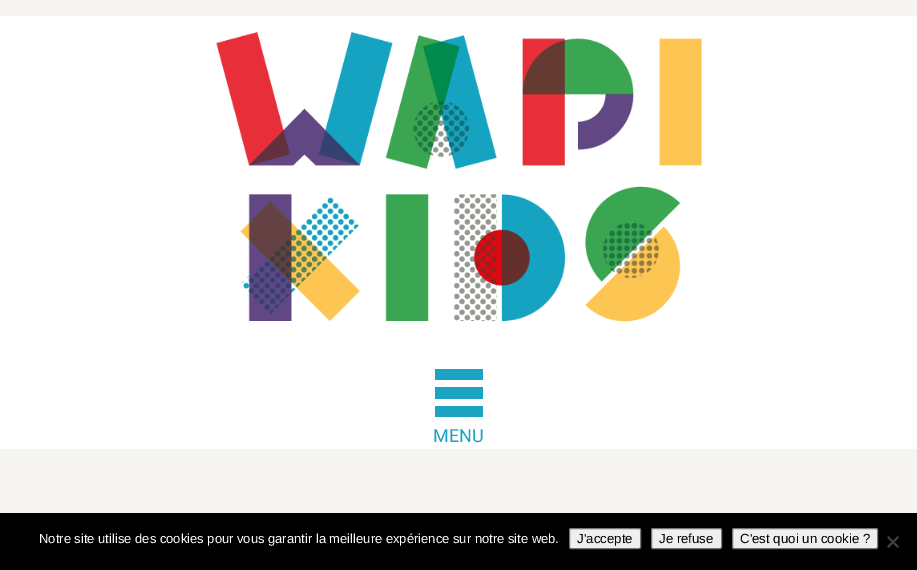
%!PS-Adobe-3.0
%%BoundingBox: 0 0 917 570
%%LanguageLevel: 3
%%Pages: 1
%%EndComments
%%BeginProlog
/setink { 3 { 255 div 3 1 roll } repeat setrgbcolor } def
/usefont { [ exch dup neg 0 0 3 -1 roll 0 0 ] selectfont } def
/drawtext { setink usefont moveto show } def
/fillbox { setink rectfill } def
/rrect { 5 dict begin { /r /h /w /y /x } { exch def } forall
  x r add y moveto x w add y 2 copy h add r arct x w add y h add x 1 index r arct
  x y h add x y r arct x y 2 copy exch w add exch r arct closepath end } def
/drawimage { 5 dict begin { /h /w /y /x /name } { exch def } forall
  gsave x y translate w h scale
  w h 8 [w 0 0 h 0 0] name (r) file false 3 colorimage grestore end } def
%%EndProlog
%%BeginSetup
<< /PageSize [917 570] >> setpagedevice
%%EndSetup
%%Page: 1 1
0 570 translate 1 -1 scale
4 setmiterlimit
0 0 917 570 246 245 241 fillbox
0 16 917 433 255 255 255 fillbox
(assets/img1.rgb) 216 32 486 290 drawimage
435 406 48 11 28 163 194 fillbox
435 387 48 12 28 163 194 fillbox
435 369 48 11 28 163 194 fillbox
(MENU) 433 442 /Roboto-Regular 18 28 163 194 drawtext
0 513 917 57 0 0 0 fillbox
(Notre site utilise des cookies pour vous garantir la meilleure expérience sur notre site web.) 39 543 /LiberationSans-Regular 13 255 255 255 drawtext
239 239 239 setink
569.5 528.5 71 20 1.5 rrect gsave fill grestore
118 118 118 setink
stroke
(J'accepte) 577 543 /LiberationSans-Regular 13.25 0 0 0 drawtext
239 239 239 setink
651.5 528.5 70 20 1.5 rrect gsave fill grestore
118 118 118 setink
stroke
(Je refuse) 659 543 /LiberationSans-Regular 13.25 0 0 0 drawtext
239 239 239 setink
732.5 528.5 145 20 1.5 rrect gsave fill grestore
118 118 118 setink
stroke
(C'est quoi un cookie ?) 740 543 /LiberationSans-Regular 13.25 0 0 0 drawtext
64 64 64 setink
897.5 536 moveto 899 537.5 lineto 888.5 548 lineto 887 546.5 lineto closepath fill
887 537.5 moveto 888.5 536 lineto 899 546.5 lineto 897.5 548 lineto closepath fill
showpage
%%EOF
